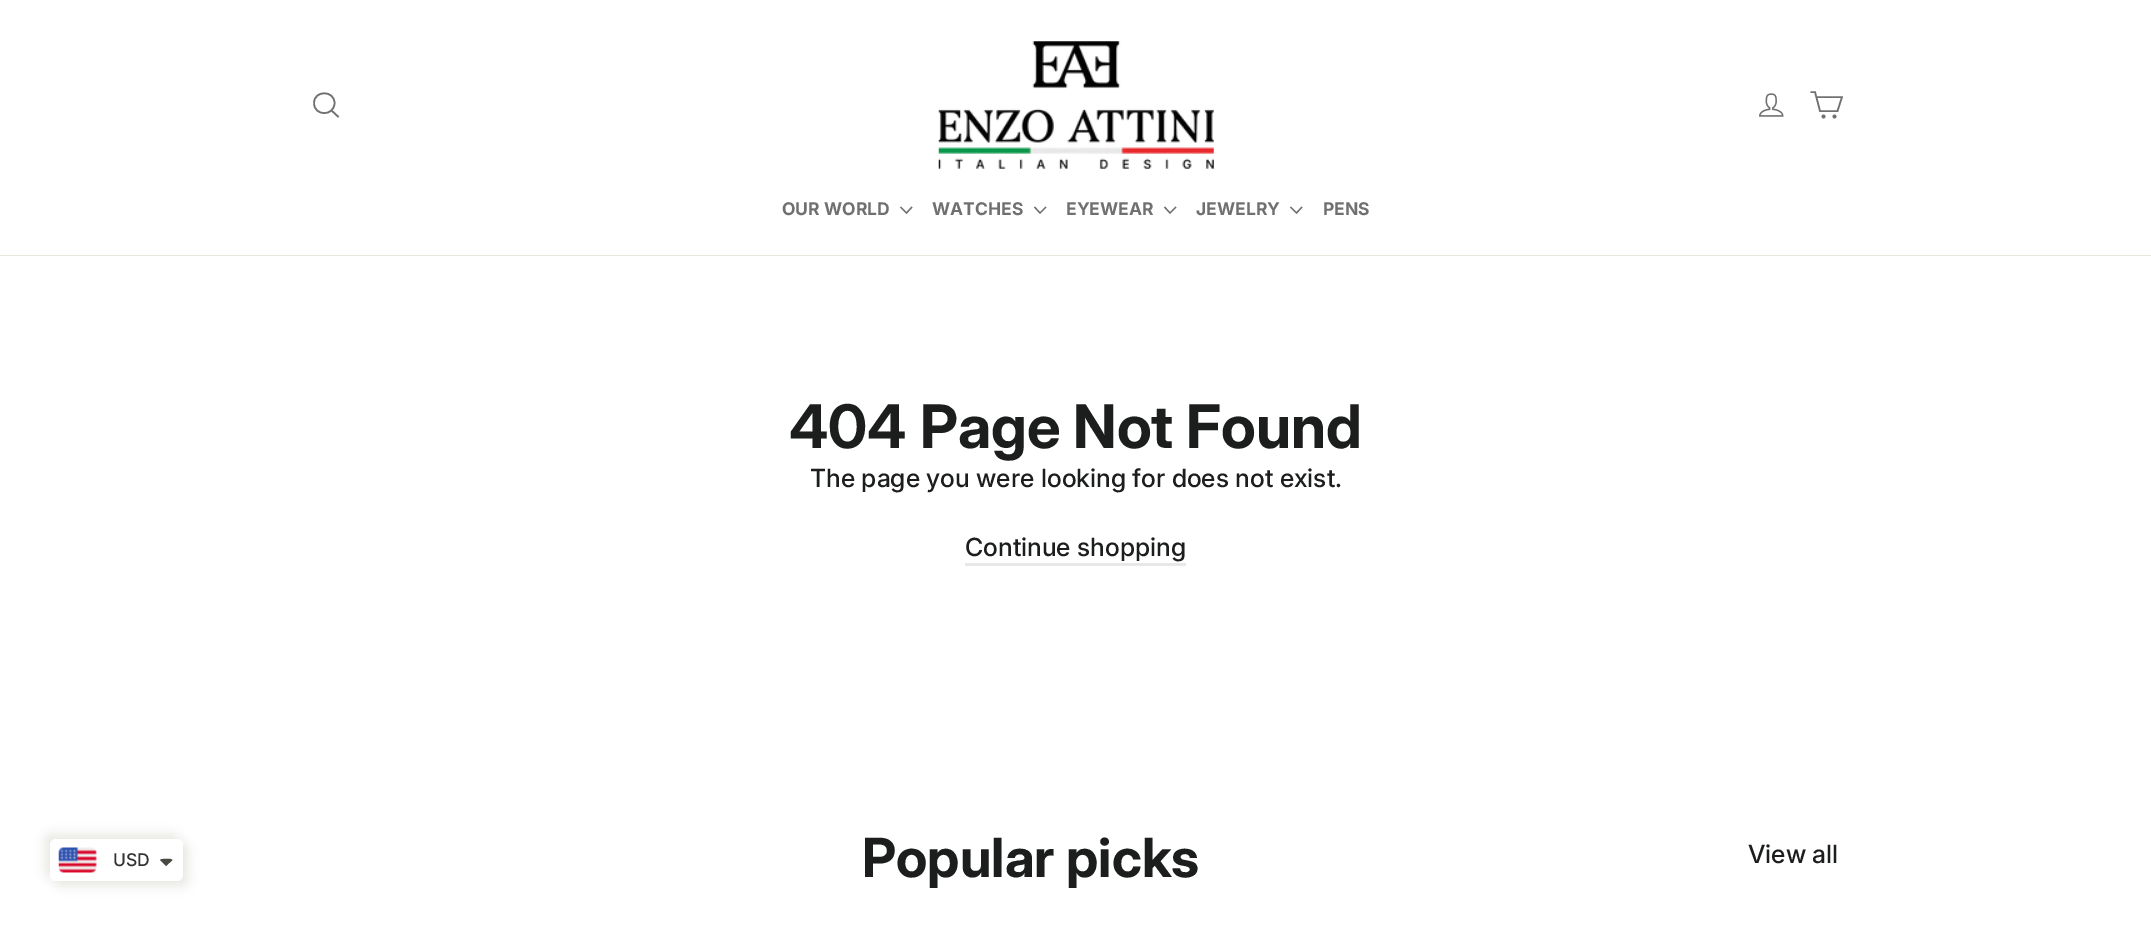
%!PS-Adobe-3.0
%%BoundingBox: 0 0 2151 935
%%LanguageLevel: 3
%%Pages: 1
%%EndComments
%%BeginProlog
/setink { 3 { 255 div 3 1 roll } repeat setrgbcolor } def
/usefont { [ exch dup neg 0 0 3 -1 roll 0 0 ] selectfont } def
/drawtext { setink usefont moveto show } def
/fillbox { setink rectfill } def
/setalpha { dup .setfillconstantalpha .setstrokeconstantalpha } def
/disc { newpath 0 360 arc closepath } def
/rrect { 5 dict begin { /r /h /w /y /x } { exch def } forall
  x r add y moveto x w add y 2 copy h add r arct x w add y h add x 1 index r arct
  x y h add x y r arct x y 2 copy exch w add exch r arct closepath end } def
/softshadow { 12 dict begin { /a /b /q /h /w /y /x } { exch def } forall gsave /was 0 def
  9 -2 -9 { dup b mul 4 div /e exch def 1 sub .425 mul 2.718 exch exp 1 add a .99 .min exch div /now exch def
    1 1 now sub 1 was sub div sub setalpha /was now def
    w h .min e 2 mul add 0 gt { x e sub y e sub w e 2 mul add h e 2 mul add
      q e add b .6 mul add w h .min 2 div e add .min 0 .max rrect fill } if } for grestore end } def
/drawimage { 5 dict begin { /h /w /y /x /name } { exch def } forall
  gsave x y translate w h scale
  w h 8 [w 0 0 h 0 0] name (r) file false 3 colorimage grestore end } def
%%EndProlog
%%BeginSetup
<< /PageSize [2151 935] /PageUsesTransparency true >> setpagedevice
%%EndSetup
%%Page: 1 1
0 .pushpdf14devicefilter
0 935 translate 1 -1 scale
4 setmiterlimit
0 0 2151 935 255 255 255 fillbox
232 232 226 setink
45 834 133 42 6 5.5 1 softshadow
55 844 133 42 6 5.5 1 softshadow
255 255 255 setink
50 839 133 42 6 rrect fill
(assets/img1.rgb) 58 847 39 26 drawimage
(USD) 113 866 /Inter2-Medium 17.5 51 51 51 drawtext
71 73 66 setink
162.5 859 moveto 165 859 170.5 858 172.5 860 curveto 166 866 lineto 160 860 lineto 160.5 859.5 161.5 859 162.5 859 curveto closepath fill
0 255 2151 1 232 232 225 fillbox
112 112 112 setink
1.6 setlinewidth
334.5 103 moveto 334.5 116.5 314 116.5 314 103 curveto 314 90 334.5 90 334.5 103 curveto closepath 338.5 117 moveto 331.5 110.5 lineto stroke
(assets/img2.rgb) 938 41 276 128 drawimage
(assets/img3.rgb) 1759 93 25 24 drawimage
1816.5 97 moveto 1842 97 lineto 1837.5 111 lineto 1820 111 lineto 1815 92 lineto 1810.5 92 lineto stroke
1823.5 116.5 1.1 disc stroke
1834.5 116.5 1.1 disc stroke
(OUR WORLD) 782 215 /Inter2-Bold 17.5 112 112 112 drawtext
1.3 setlinewidth
900.5 207 moveto 906.5 213 lineto 912 207 lineto stroke
(WATCHES) 932 215 /Inter2-Bold 17.5 112 112 112 drawtext
1034.5 207 moveto 1040 213 lineto 1046 207 lineto stroke
(EYEWEAR) 1066 215 /Inter2-Bold 17.5 112 112 112 drawtext
1164.5 207 moveto 1170 213 lineto 1176 207 lineto stroke
(JEWELRY) 1196 215 /Inter2-Bold 17.5 112 112 112 drawtext
1290.5 207 moveto 1296.5 213 lineto 1302 207 lineto stroke
(PENS) 1323 215 /Inter2-Bold 17.5 112 112 112 drawtext
(404 Page Not Found) 789 448 /Inter-Bold 60 28 29 29 drawtext
(The page you were looking for does not exist.) 810 487 /Inter-Medium 25 28 29 29 drawtext
(Continue shopping) 965 556 /Inter-Medium 25 28 29 29 drawtext
965 563 221 3 232 232 232 fillbox
(Popular picks) 862 877 /Inter-Bold 54 28 29 29 drawtext
(View all) 1748 863 /Inter-Medium 25 28 29 29 drawtext
.poppdf14devicefilter showpage
%%EOF
